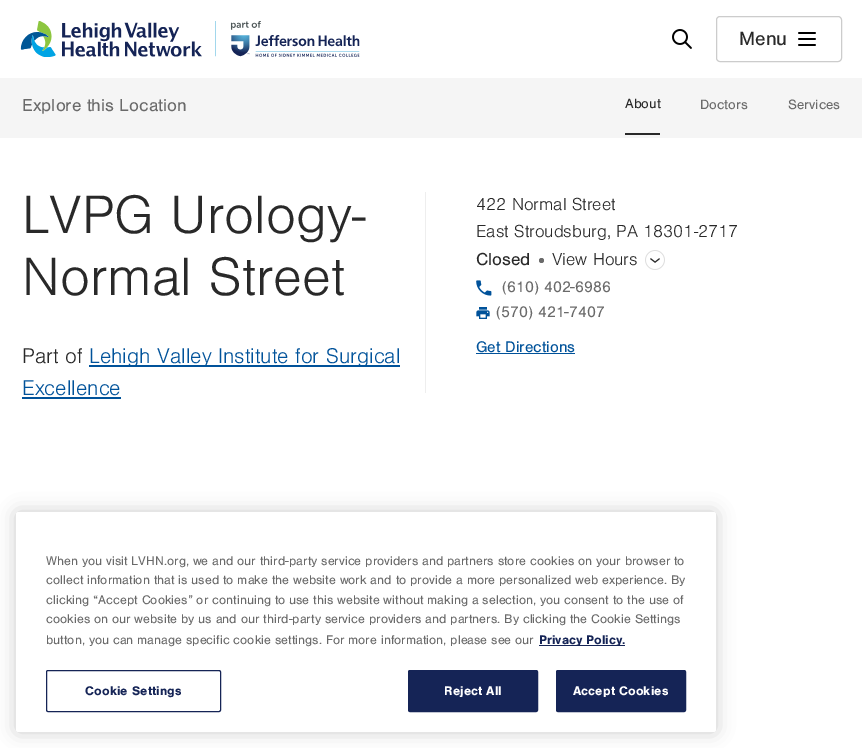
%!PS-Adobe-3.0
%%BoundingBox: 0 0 862 748
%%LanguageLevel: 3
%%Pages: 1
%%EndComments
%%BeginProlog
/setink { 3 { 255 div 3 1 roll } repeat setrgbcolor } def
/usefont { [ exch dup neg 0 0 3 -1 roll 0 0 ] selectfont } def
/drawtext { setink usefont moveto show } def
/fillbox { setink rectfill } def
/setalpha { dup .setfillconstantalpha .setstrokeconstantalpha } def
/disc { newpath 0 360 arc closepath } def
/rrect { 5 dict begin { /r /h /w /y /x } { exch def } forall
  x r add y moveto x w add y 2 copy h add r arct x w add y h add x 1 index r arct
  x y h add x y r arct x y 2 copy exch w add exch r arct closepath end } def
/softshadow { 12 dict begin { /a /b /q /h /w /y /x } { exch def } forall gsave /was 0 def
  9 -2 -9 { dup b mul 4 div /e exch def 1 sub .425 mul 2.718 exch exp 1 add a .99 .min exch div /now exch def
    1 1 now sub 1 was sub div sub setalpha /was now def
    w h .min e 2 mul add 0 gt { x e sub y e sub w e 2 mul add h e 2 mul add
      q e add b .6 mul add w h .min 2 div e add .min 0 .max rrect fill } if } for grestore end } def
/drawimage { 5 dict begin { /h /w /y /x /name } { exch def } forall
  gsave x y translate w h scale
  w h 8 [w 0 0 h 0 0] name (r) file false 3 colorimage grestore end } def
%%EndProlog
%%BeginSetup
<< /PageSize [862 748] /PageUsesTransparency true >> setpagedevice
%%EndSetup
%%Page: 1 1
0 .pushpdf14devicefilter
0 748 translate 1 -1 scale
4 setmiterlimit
0 0 862 748 255 255 255 fillbox
(assets/img1.rgb) 20 21 340 36 drawimage
(assets/img2.rgb) 672 29 20 20 drawimage
204 204 204 setink
716.5 16.5 125 45 3.5 rrect stroke
(Menu) 739 45 /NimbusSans-Regular 20 41 41 41 drawtext
(assets/img3.rgb) 798 32 18 14 drawimage
0 78 862 60 245 245 245 fillbox
(Explore this Location) 22 111 /NimbusSans-Regular 18 106 106 106 drawtext
625 133 35 2 41 41 41 fillbox
(About) 625 108 /NimbusSans-Regular 14 41 41 41 drawtext
(Doctors) 700 109 /NimbusSans-Regular 14 106 106 106 drawtext
(Services) 788 109 /NimbusSans-Regular 14 106 106 106 drawtext
(LVPG Urology-) 22 233 /NimbusSans-Light 56 41 41 41 drawtext
(Normal Street) 22 295 /NimbusSans-Light 56 41 41 41 drawtext
(Part of) 22 363 /NimbusSans-Light 22 41 41 41 drawtext
89 365 311 2 0 82 154 fillbox
(Lehigh Valley Institute for Surgical) 89 363 /NimbusSans-Light 22 0 82 154 drawtext
(Excellence) 22 395 /NimbusSans-Light 22 0 82 154 drawtext
22 397 99 2 0 82 154 fillbox
425 192 1 201 238 238 238 fillbox
(422 Normal Street) 476 210 /NimbusSans-Light 18 41 41 41 drawtext
(East Stroudsburg, PA 18301-2717) 476 237 /NimbusSans-Light 18 41 41 41 drawtext
(Closed) 476 265 /NimbusSans-Regular 18 41 41 41 drawtext
106 106 106 setink
541.5 260.5 2.5 disc fill
(View Hours) 552 265 /NimbusSans-Light 18 41 41 41 drawtext
(assets/img4.rgb) 645 250 20 20 drawimage
(assets/img5.rgb) 476 280 16 16 drawimage
(\(610\) 402-6986) 502 292 /NimbusSans-Regular 16 106 106 106 drawtext
(assets/img6.rgb) 476 307 14 12 drawimage
(\(570\) 421-7407) 496 317 /NimbusSans-Regular 16 106 106 106 drawtext
(Get Directions) 476 352 /NimbusSans-Regular 16 0 82 154 drawtext
476 353 99 1 0 82 154 fillbox
0 0 0 setink
16 512 700 220 2.5 9 0.2 softshadow
255 255 255 setink
16 512 700 220 2.5 rrect fill
(When you visit LVHN.org, we and our third-party service providers and partners store cookies on your browser to) 46 565 /NimbusSans-Regular 13 106 106 106 drawtext
(collect information that is used to make the website work and to provide a more personalized web experience. By) 46 584 /NimbusSans-Regular 13 106 106 106 drawtext
(clicking “Accept Cookies” or continuing to use this website without making a selection, you consent to the use of) 46 604 /NimbusSans-Regular 13 106 106 106 drawtext
(cookies on our website by us and our third-party service providers and partners. By clicking the Cookie Settings) 46 623 /NimbusSans-Regular 13 106 106 106 drawtext
(button, you can manage specific cookie settings. For more information, please see our) 46 644 /NimbusSans-Regular 13 106 106 106 drawtext
539 645 86 1 21 36 86 fillbox
(Privacy Policy.) 539 644 /NimbusSans-Bold 13 21 36 86 drawtext
46.5 670.5 174 41 1.5 rrect stroke
85 695 moveto 0.1 0 (Cookie Settings) ashow
408.5 670.5 129 41 1.5 rrect gsave fill grestore
stroke
255 255 255 setink
444 695 moveto 0.1 0 (Reject All) ashow
21 36 86 setink
556.5 670.5 129 41 1.5 rrect gsave fill grestore
stroke
255 255 255 setink
573 695 moveto 0.1 0 (Accept Cookies) ashow
.poppdf14devicefilter showpage
%%EOF
